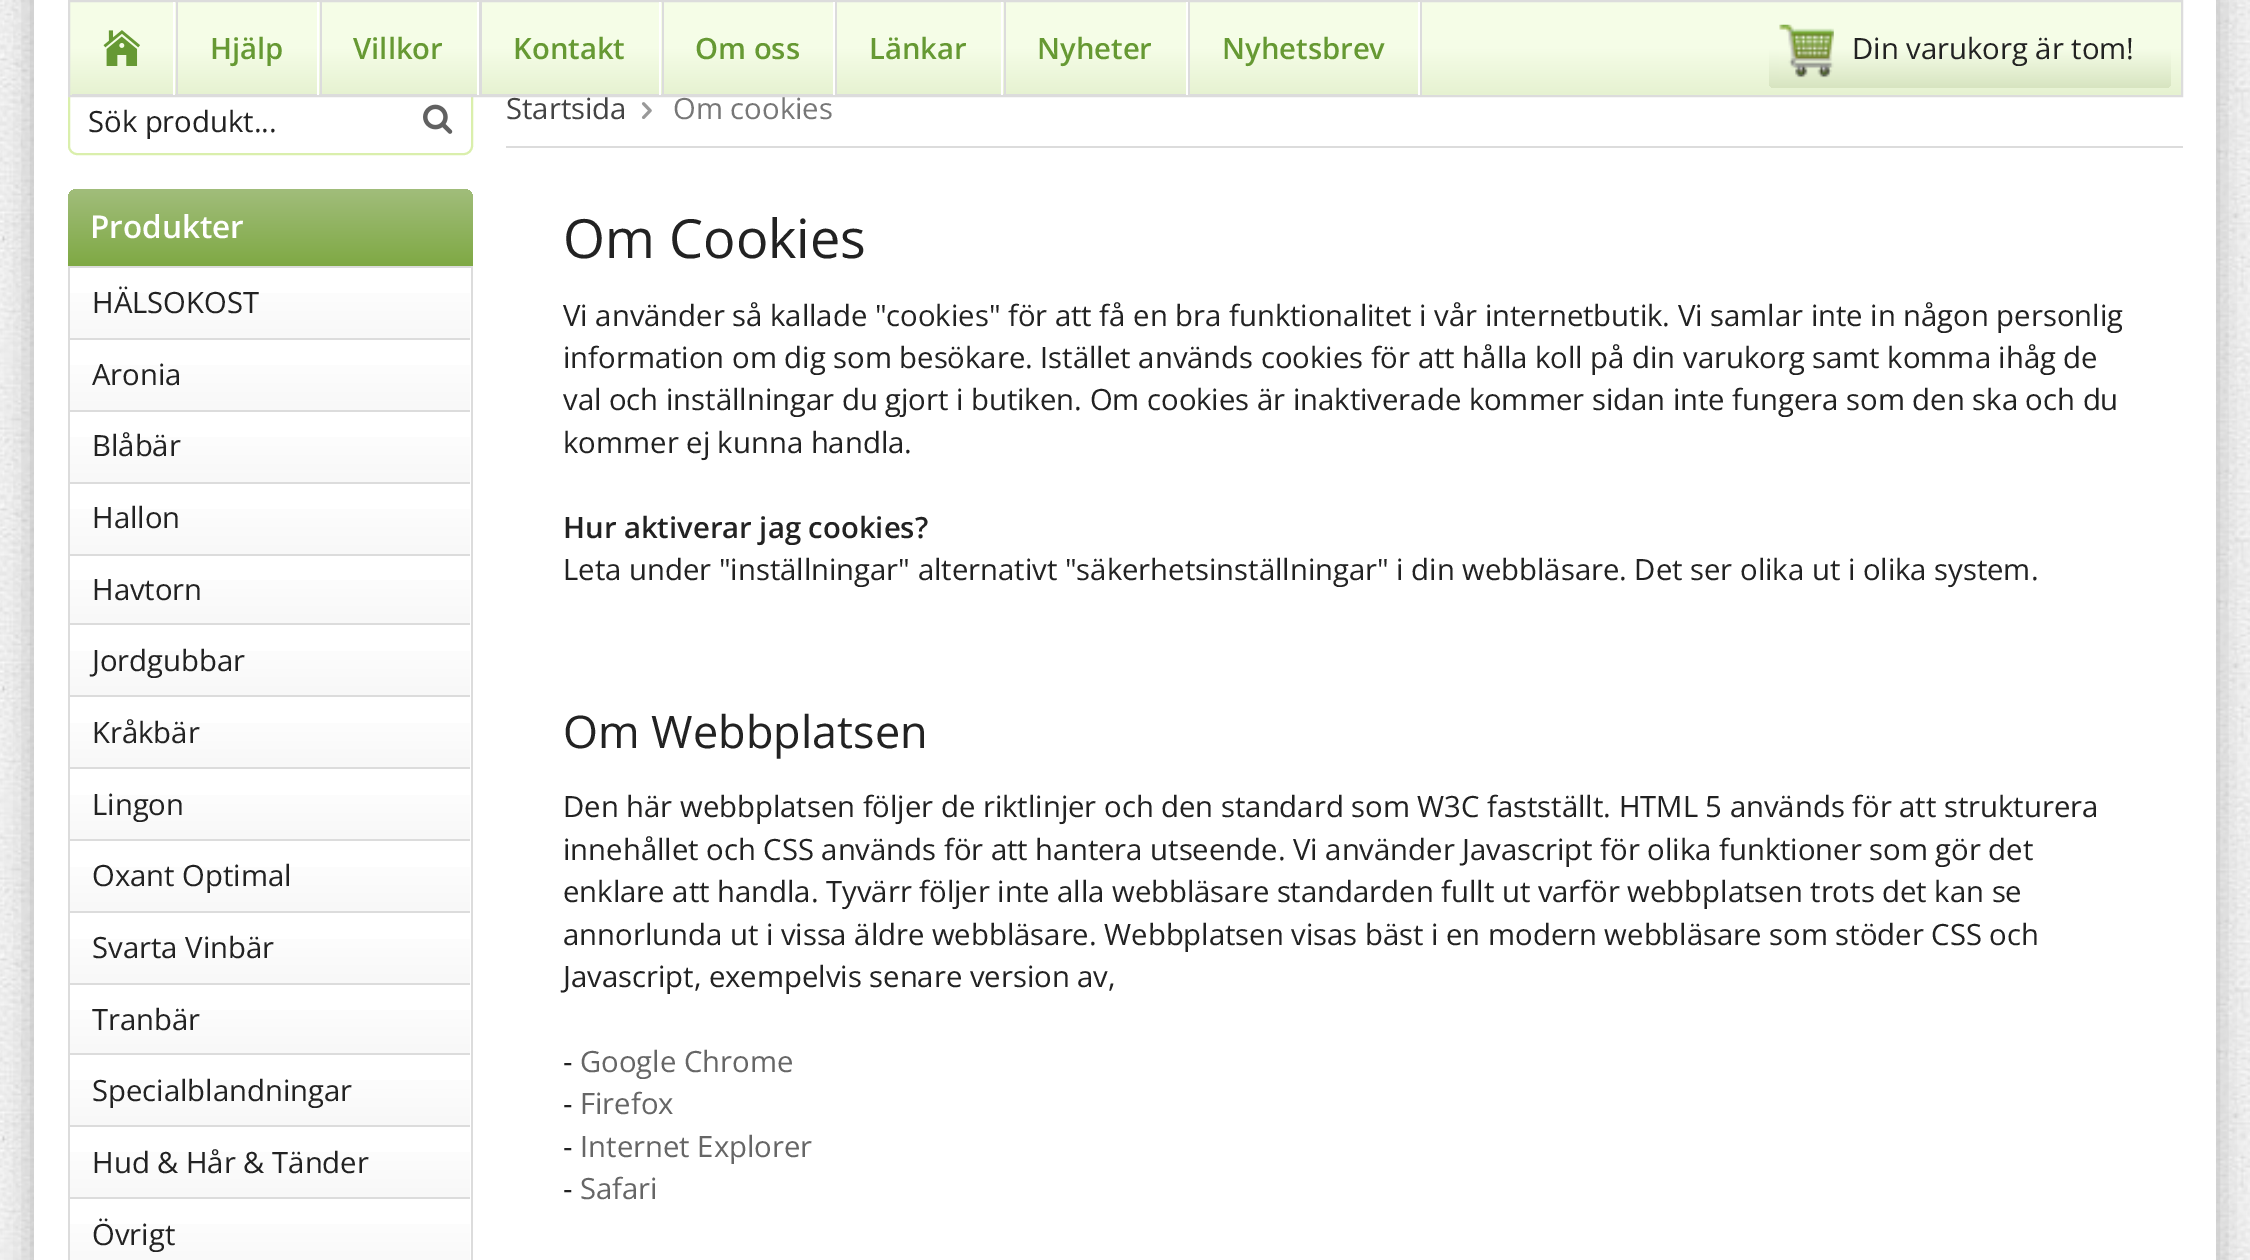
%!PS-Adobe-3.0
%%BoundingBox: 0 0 2250 1260
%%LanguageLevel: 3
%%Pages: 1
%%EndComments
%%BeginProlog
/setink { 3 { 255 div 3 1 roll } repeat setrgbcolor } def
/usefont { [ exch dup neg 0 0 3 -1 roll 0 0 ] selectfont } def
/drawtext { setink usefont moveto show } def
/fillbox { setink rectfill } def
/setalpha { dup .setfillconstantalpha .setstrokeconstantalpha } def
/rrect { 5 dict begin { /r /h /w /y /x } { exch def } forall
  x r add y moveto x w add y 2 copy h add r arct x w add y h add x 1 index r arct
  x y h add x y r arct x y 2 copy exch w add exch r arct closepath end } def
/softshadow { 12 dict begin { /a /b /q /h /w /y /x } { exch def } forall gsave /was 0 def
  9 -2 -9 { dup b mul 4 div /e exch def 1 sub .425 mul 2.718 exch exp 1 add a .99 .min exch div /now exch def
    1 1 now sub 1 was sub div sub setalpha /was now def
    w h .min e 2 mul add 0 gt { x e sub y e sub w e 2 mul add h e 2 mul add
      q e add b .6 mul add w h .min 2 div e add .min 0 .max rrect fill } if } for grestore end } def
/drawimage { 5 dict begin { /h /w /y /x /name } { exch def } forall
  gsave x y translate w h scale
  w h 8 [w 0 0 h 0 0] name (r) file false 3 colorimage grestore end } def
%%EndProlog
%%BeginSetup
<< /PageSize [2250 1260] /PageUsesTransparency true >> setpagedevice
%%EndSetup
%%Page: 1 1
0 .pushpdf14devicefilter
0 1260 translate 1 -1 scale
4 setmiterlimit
0 0 2250 1260 255 255 255 fillbox
(assets/img1.rgb) 0 0 2250 1260 drawimage
181 181 181 setink
34 -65 2182 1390 14 17 1 softshadow
34 0 2182 1260 255 255 255 fillbox
218 239 172 setink
2 setlinewidth
69 89 403 65 8 rrect stroke
gsave 70 2 moveto 2181 2 lineto 2181 95 lineto 70 95 lineto closepath clip newpath
<< /ShadingType 2 /ColorSpace /DeviceRGB /Coords [1125 2.2 1125 95] /Extend [true true] /Function << /FunctionType 3 /Domain [0 1] /Functions [<< /FunctionType 2 /Domain [0 1] /C0 [0.961 0.992 0.906] /C1 [0.961 0.992 0.906] /N 1 >> << /FunctionType 2 /Domain [0 1] /C0 [0.961 0.992 0.906] /C1 [0.902 0.949 0.82] /N 1 >>] /Bounds [0.5] /Encode [0 1 0 1] >> >> shfill grestore
(Startsida) 506 119 /OpenSans-Regular 29.25 68 68 68 drawtext
(Om cookies) 673 119 /OpenSans-Regular 29.25 119 119 119 drawtext
220 220 220 setink
69 1 2113 95 rectstroke
72 2 moveto 176 2 lineto 176 94 lineto 72 94 lineto 72 95 lineto 178 95 lineto 178 2 lineto closepath fill
173 2 2 93 255 255 255 fillbox
(assets/img2.rgb) 103 30 37 36 drawimage
220 220 220 setink
178 2 moveto 320 2 lineto 320 94 lineto 178 94 lineto 178 95 lineto 322 95 lineto 322 2 lineto closepath fill
317 2 2 93 255 255 255 fillbox
(Hjälp) 210 59 /OpenSans-SemiBold 29.25 102 153 51 drawtext
220 220 220 setink
322 2 moveto 479 2 lineto 479 94 lineto 322 94 lineto 322 95 lineto 482 95 lineto 482 2 lineto closepath fill
477 2 2 93 255 255 255 fillbox
(Villkor) 353 59 /OpenSans-SemiBold 29.25 102 153 51 drawtext
220 220 220 setink
482 2 moveto 662 2 lineto 662 94 lineto 482 94 lineto 482 95 lineto 664 95 lineto 664 2 lineto closepath fill
659 2 2 93 255 255 255 fillbox
(Kontakt) 513 59 /OpenSans-SemiBold 29.25 102 153 51 drawtext
220 220 220 setink
664 2 moveto 835 2 lineto 835 94 lineto 664 94 lineto 664 95 lineto 837 95 lineto 837 2 lineto closepath fill
833 2 2 93 255 255 255 fillbox
(Om oss) 695 59 /OpenSans-SemiBold 29.25 102 153 51 drawtext
220 220 220 setink
837 2 moveto 1004 2 lineto 1004 94 lineto 837 94 lineto 837 95 lineto 1006 95 lineto 1006 2 lineto closepath fill
1001 2 2 93 255 255 255 fillbox
(Länkar) 869 59 /OpenSans-SemiBold 29.25 102 153 51 drawtext
220 220 220 setink
1006 2 moveto 1188 2 lineto 1188 94 lineto 1006 94 lineto 1006 95 lineto 1190 95 lineto 1190 2 lineto closepath fill
1186 2 2 93 255 255 255 fillbox
(Nyheter) 1037 59 /OpenSans-SemiBold 29.25 102 153 51 drawtext
220 220 220 setink
1190 2 moveto 1420 2 lineto 1420 94 lineto 1190 94 lineto 1190 95 lineto 1422 95 lineto 1422 2 lineto closepath fill
1418 2 2 93 255 255 255 fillbox
(Nyhetsbrev) 1222 59 /OpenSans-SemiBold 29.25 102 153 51 drawtext
gsave 1769 9 402 79 5 rrect clip newpath
<< /ShadingType 2 /ColorSpace /DeviceRGB /Coords [1970 9 1970 88] /Extend [true true] /Function << /FunctionType 3 /Domain [0 1] /Functions [<< /FunctionType 2 /Domain [0 1] /C0 [0.961 0.992 0.906] /C1 [0.961 0.992 0.906] /N 1 >> << /FunctionType 2 /Domain [0 1] /C0 [0.961 0.992 0.906] /C1 [0.843 0.894 0.753] /N 1 >>] /Bounds [0.5] /Encode [0 1 0 1] >> >> shfill grestore
(assets/img3.rgb) 1779 24 55 54 drawimage
(Din varukorg är tom!) 1852 59 /OpenSans-Regular 29.25 34 34 34 drawtext
(Sök produkt...) 88 132 /OpenSans-Regular 29.25 34 34 34 drawtext
(assets/img4.rgb) 423 104 30 30 drawimage
gsave 77 189 moveto 464 189 lineto 469 189 473 193 473 198 curveto 473 266 lineto 68 266 lineto 68 198 lineto 68 193 72 189 77 189 curveto closepath clip newpath
<< /ShadingType 2 /ColorSpace /DeviceRGB /Coords [270 189 270 266] /Extend [true true] /Function << /FunctionType 2 /Domain [0 1] /C0 [0.631 0.741 0.482] /C1 [0.498 0.663 0.267] /N 1 >> >> shfill grestore
(Produkter) 90 238 /OpenSans-SemiBold 31.5 255 255 255 drawtext
220 220 220 setink
70 268 moveto 471 268 lineto 471 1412 lineto 472 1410 473 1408 473 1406 curveto 473 266 lineto 68 266 lineto 68 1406 lineto 68 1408 69 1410 70 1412 curveto closepath 464 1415 moveto 466 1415 468 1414 470 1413 curveto 71 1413 lineto 73 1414 75 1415 77 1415 curveto closepath eofill
gsave 70 293 moveto 470 293 lineto 470 338 lineto 70 338 lineto closepath clip newpath
<< /ShadingType 2 /ColorSpace /DeviceRGB /Coords [270 268 270 338] /Extend [true true] /Function << /FunctionType 2 /Domain [0 1] /C0 [1 1 1] /C1 [0.973 0.973 0.973] /N 1 >> >> shfill grestore
70 338 400 2 220 220 220 fillbox
(HÄLSOKOST) 92 313 /OpenSans-Regular 29.25 34 34 34 drawtext
gsave 70 365 moveto 470 365 lineto 470 410 lineto 70 410 lineto closepath clip newpath
<< /ShadingType 2 /ColorSpace /DeviceRGB /Coords [270 340 270 410] /Extend [true true] /Function << /FunctionType 2 /Domain [0 1] /C0 [1 1 1] /C1 [0.973 0.973 0.973] /N 1 >> >> shfill grestore
70 410 400 2 220 220 220 fillbox
(Aronia) 92 385 /OpenSans-Regular 29.25 34 34 34 drawtext
gsave 70 437 moveto 470 437 lineto 470 482 lineto 70 482 lineto closepath clip newpath
<< /ShadingType 2 /ColorSpace /DeviceRGB /Coords [270 412 270 482] /Extend [true true] /Function << /FunctionType 2 /Domain [0 1] /C0 [1 1 1] /C1 [0.973 0.973 0.973] /N 1 >> >> shfill grestore
70 482 400 2 220 220 220 fillbox
(Blåbär) 92 456 /OpenSans-Regular 29.25 34 34 34 drawtext
gsave 70 509 moveto 470 509 lineto 470 554 lineto 70 554 lineto closepath clip newpath
<< /ShadingType 2 /ColorSpace /DeviceRGB /Coords [270 484 270 554] /Extend [true true] /Function << /FunctionType 2 /Domain [0 1] /C0 [1 1 1] /C1 [0.973 0.973 0.973] /N 1 >> >> shfill grestore
70 554 400 2 220 220 220 fillbox
(Hallon) 92 528 /OpenSans-Regular 29.25 34 34 34 drawtext
gsave 70 580 moveto 470 580 lineto 470 623 lineto 70 623 lineto closepath clip newpath
<< /ShadingType 2 /ColorSpace /DeviceRGB /Coords [270 556 270 623] /Extend [true true] /Function << /FunctionType 2 /Domain [0 1] /C0 [1 1 1] /C1 [0.973 0.973 0.973] /N 1 >> >> shfill grestore
70 623 400 2 220 220 220 fillbox
(Havtorn) 92 600 /OpenSans-Regular 29.25 34 34 34 drawtext
gsave 70 651 moveto 470 651 lineto 470 695 lineto 70 695 lineto closepath clip newpath
<< /ShadingType 2 /ColorSpace /DeviceRGB /Coords [270 626 270 695] /Extend [true true] /Function << /FunctionType 2 /Domain [0 1] /C0 [1 1 1] /C1 [0.973 0.973 0.973] /N 1 >> >> shfill grestore
70 695 400 2 220 220 220 fillbox
(Jordgubbar) 92 671 /OpenSans-Regular 29.25 34 34 34 drawtext
gsave 70 723 moveto 470 723 lineto 470 767 lineto 70 767 lineto closepath clip newpath
<< /ShadingType 2 /ColorSpace /DeviceRGB /Coords [270 698 270 767] /Extend [true true] /Function << /FunctionType 2 /Domain [0 1] /C0 [1 1 1] /C1 [0.973 0.973 0.973] /N 1 >> >> shfill grestore
70 767 400 2 220 220 220 fillbox
(Kråkbär) 92 743 /OpenSans-Regular 29.25 34 34 34 drawtext
gsave 70 795 moveto 470 795 lineto 470 839 lineto 70 839 lineto closepath clip newpath
<< /ShadingType 2 /ColorSpace /DeviceRGB /Coords [270 770 270 839] /Extend [true true] /Function << /FunctionType 2 /Domain [0 1] /C0 [1 1 1] /C1 [0.973 0.973 0.973] /N 1 >> >> shfill grestore
70 839 400 2 220 220 220 fillbox
(Lingon) 92 815 /OpenSans-Regular 29.25 34 34 34 drawtext
gsave 70 867 moveto 470 867 lineto 470 911 lineto 70 911 lineto closepath clip newpath
<< /ShadingType 2 /ColorSpace /DeviceRGB /Coords [270 842 270 911] /Extend [true true] /Function << /FunctionType 2 /Domain [0 1] /C0 [1 1 1] /C1 [0.973 0.973 0.973] /N 1 >> >> shfill grestore
70 911 400 2 220 220 220 fillbox
(Oxant Optimal) 92 886 /OpenSans-Regular 29.25 34 34 34 drawtext
gsave 70 939 moveto 470 939 lineto 470 983 lineto 70 983 lineto closepath clip newpath
<< /ShadingType 2 /ColorSpace /DeviceRGB /Coords [270 914 270 983] /Extend [true true] /Function << /FunctionType 2 /Domain [0 1] /C0 [1 1 1] /C1 [0.973 0.973 0.973] /N 1 >> >> shfill grestore
70 983 400 2 220 220 220 fillbox
(Svarta Vinbär) 92 958 /OpenSans-Regular 29.25 34 34 34 drawtext
gsave 70 1010 moveto 470 1010 lineto 470 1053 lineto 70 1053 lineto closepath clip newpath
<< /ShadingType 2 /ColorSpace /DeviceRGB /Coords [270 986 270 1053] /Extend [true true] /Function << /FunctionType 2 /Domain [0 1] /C0 [1 1 1] /C1 [0.973 0.973 0.973] /N 1 >> >> shfill grestore
70 1053 400 2 220 220 220 fillbox
(Tranbär) 92 1030 /OpenSans-Regular 29.25 34 34 34 drawtext
gsave 70 1080 moveto 470 1080 lineto 470 1125 lineto 70 1125 lineto closepath clip newpath
<< /ShadingType 2 /ColorSpace /DeviceRGB /Coords [270 1055 270 1125] /Extend [true true] /Function << /FunctionType 2 /Domain [0 1] /C0 [1 1 1] /C1 [0.973 0.973 0.973] /N 1 >> >> shfill grestore
70 1125 400 2 220 220 220 fillbox
(Specialblandningar) 92 1101 /OpenSans-Regular 29.25 34 34 34 drawtext
gsave 70 1152 moveto 470 1152 lineto 470 1197 lineto 70 1197 lineto closepath clip newpath
<< /ShadingType 2 /ColorSpace /DeviceRGB /Coords [270 1127 270 1197] /Extend [true true] /Function << /FunctionType 2 /Domain [0 1] /C0 [1 1 1] /C1 [0.973 0.973 0.973] /N 1 >> >> shfill grestore
70 1197 400 2 220 220 220 fillbox
(Hud & Hår & Tänder) 92 1173 /OpenSans-Regular 29.25 34 34 34 drawtext
gsave 70 1224 moveto 470 1224 lineto 470 1260 lineto 70 1260 lineto closepath clip newpath
<< /ShadingType 2 /ColorSpace /DeviceRGB /Coords [270 1199 270 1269] /Extend [true true] /Function << /FunctionType 2 /Domain [0 1] /C0 [1 1 1] /C1 [0.973 0.973 0.973] /N 1 >> >> shfill grestore
(Övrigt) 92 1245 /OpenSans-Regular 29.25 34 34 34 drawtext
506 146 1677 2 220 220 220 fillbox
(assets/img5.rgb) 641 102 11 17 drawimage
(Om Cookies) 563 258 /OpenSans-Regular 54 34 34 34 drawtext
(Vi använder så kallade "cookies" för att få en bra funktionalitet i vår internetbutik. Vi samlar inte in någon personlig) 563 326 /OpenSans-Regular 29.25 34 34 34 drawtext
(information om dig som besökare. Istället används cookies för att hålla koll på din varukorg samt komma ihåg de) 563 368 /OpenSans-Regular 29.25 34 34 34 drawtext
(val och inställningar du gjort i butiken. Om cookies är inaktiverade kommer sidan inte fungera som den ska och du) 563 410 /OpenSans-Regular 29.25 34 34 34 drawtext
(kommer ej kunna handla.) 563 453 /OpenSans-Regular 29.25 34 34 34 drawtext
(Hur aktiverar jag cookies?) 563 538 /OpenSans-SemiBold 29.25 34 34 34 drawtext
(Leta under "inställningar" alternativt "säkerhetsinställningar" i din webbläsare. Det ser olika ut i olika system.) 563 580 /OpenSans-Regular 29.25 34 34 34 drawtext
(Om Webbplatsen) 563 748 /OpenSans-Regular 45 34 34 34 drawtext
(Den här webbplatsen följer de riktlinjer och den standard som W3C fastställt. HTML 5 används för att strukturera) 563 817 /OpenSans-Regular 29.25 34 34 34 drawtext
(innehållet och CSS används för att hantera utseende. Vi använder Javascript för olika funktioner som gör det) 563 860 /OpenSans-Regular 29.25 34 34 34 drawtext
(enklare att handla. Tyvärr följer inte alla webbläsare standarden fullt ut varför webbplatsen trots det kan se) 563 902 /OpenSans-Regular 29.25 34 34 34 drawtext
(annorlunda ut i vissa äldre webbläsare. Webbplatsen visas bäst i en modern webbläsare som stöder CSS och) 563 945 /OpenSans-Regular 29.25 34 34 34 drawtext
(Javascript, exempelvis senare version av,) 563 987 /OpenSans-Regular 29.25 34 34 34 drawtext
(-) 563 1072 /OpenSans-Regular 29.25 34 34 34 drawtext
(Google Chrome) 580 1072 /OpenSans-Regular 29.25 102 102 102 drawtext
(-) 563 1114 /OpenSans-Regular 29.25 34 34 34 drawtext
(Firefox) 580 1114 /OpenSans-Regular 29.25 102 102 102 drawtext
(-) 563 1157 /OpenSans-Regular 29.25 34 34 34 drawtext
(Internet Explorer) 580 1157 /OpenSans-Regular 29.25 102 102 102 drawtext
(-) 563 1199 /OpenSans-Regular 29.25 34 34 34 drawtext
(Safari) 580 1199 /OpenSans-Regular 29.25 102 102 102 drawtext
.poppdf14devicefilter showpage
%%EOF
